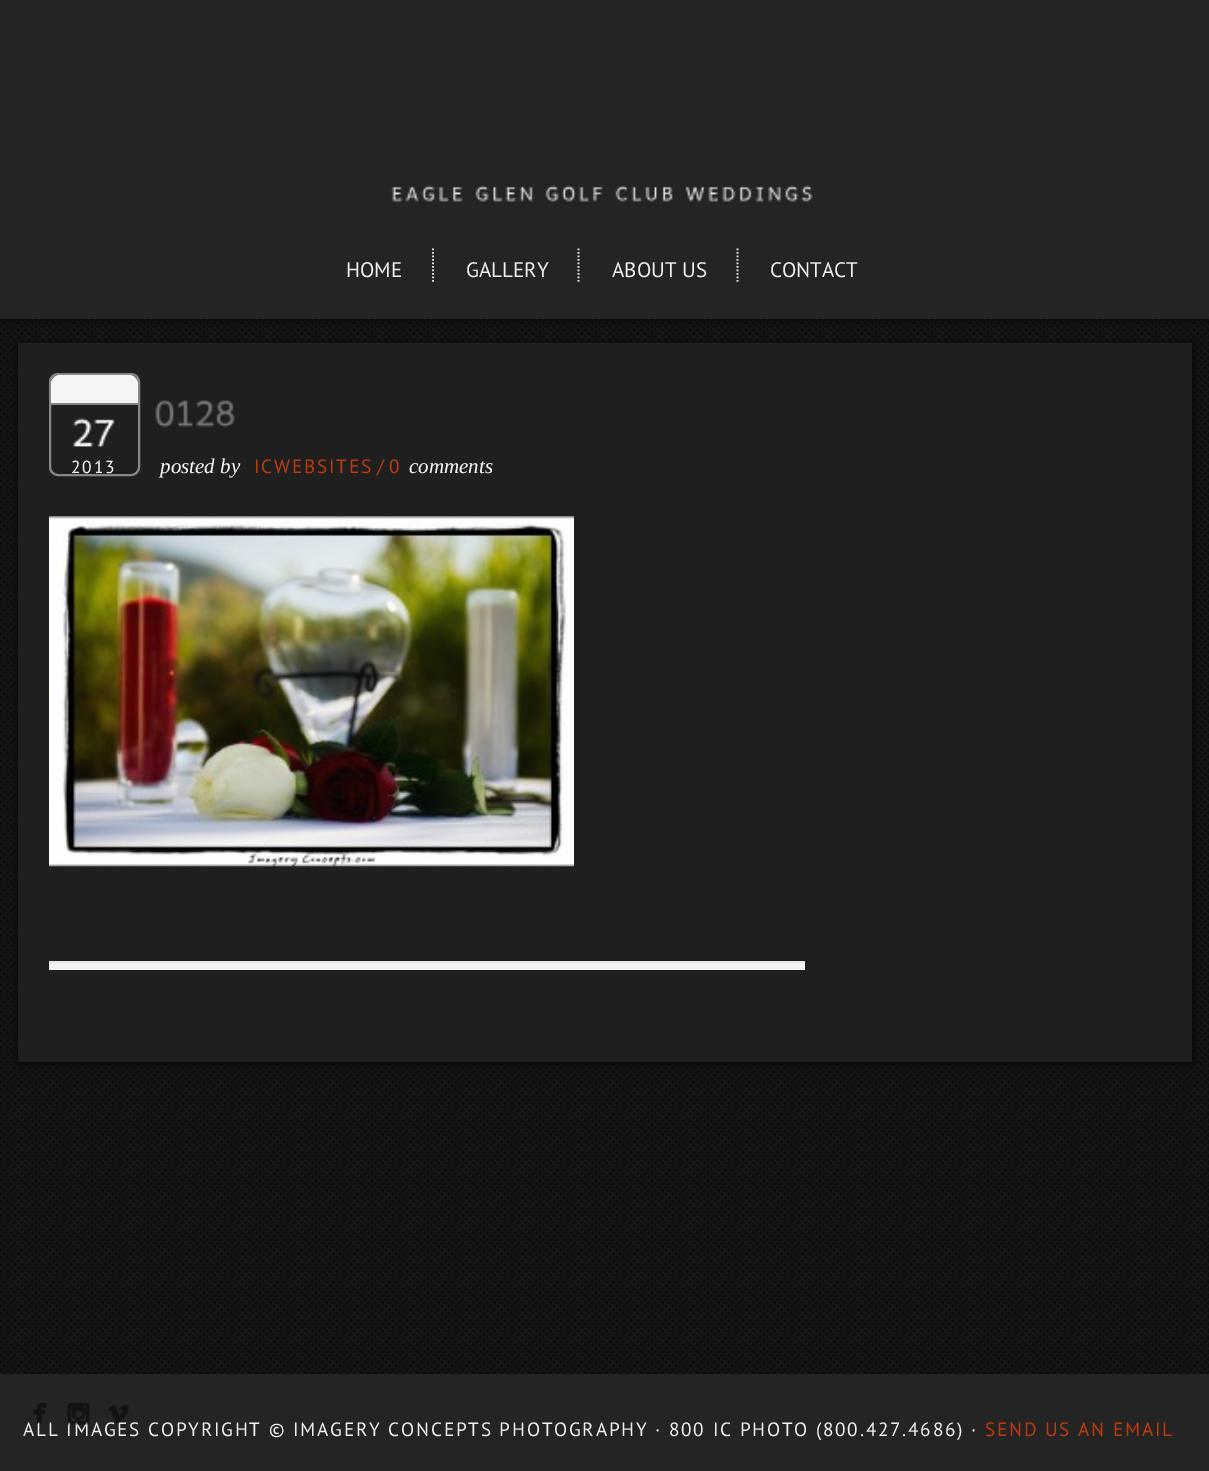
%!PS-Adobe-3.0
%%BoundingBox: 0 0 1209 1471
%%LanguageLevel: 3
%%Pages: 1
%%EndComments
%%BeginProlog
/setink { 3 { 255 div 3 1 roll } repeat setrgbcolor } def
/usefont { [ exch dup neg 0 0 3 -1 roll 0 0 ] selectfont } def
/drawtext { setink usefont moveto show } def
/fillbox { setink rectfill } def
/setalpha { dup .setfillconstantalpha .setstrokeconstantalpha } def
/rrect { 5 dict begin { /r /h /w /y /x } { exch def } forall
  x r add y moveto x w add y 2 copy h add r arct x w add y h add x 1 index r arct
  x y h add x y r arct x y 2 copy exch w add exch r arct closepath end } def
/softshadow { 12 dict begin { /a /b /q /h /w /y /x } { exch def } forall gsave /was 0 def
  9 -2 -9 { dup b mul 4 div /e exch def 1 sub .425 mul 2.718 exch exp 1 add a .99 .min exch div /now exch def
    1 1 now sub 1 was sub div sub setalpha /was now def
    w h .min e 2 mul add 0 gt { x e sub y e sub w e 2 mul add h e 2 mul add
      q e add b .6 mul add w h .min 2 div e add .min 0 .max rrect fill } if } for grestore end } def
/drawimage { 5 dict begin { /h /w /y /x /name } { exch def } forall
  gsave x y translate w h scale
  w h 8 [w 0 0 h 0 0] name (r) file false 3 colorimage grestore end } def
%%EndProlog
%%BeginSetup
<< /PageSize [1209 1471] /PageUsesTransparency true >> setpagedevice
%%EndSetup
%%Page: 1 1
0 .pushpdf14devicefilter
0 1471 translate 1 -1 scale
4 setmiterlimit
0 0 1209 1471 13 13 13 fillbox
(assets/img1.rgb) 0 319 1209 1055 drawimage
0 0 0 setink
2 2 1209 318 0 4.5 0.7 softshadow
0 0 1209 319 36 36 36 fillbox
(assets/img2.rgb) 391 185 72 17 drawimage
(assets/img3.rgb) 475 185 58 17 drawimage
(assets/img4.rgb) 545 185 58 17 drawimage
(assets/img5.rgb) 615 185 58 17 drawimage
(assets/img6.rgb) 685 185 128 17 drawimage
(HOME) 346 277 /PTSans-Regular 21 240 240 240 drawtext
221 221 221 setink
1.8 setlinewidth
[1.75 1.75] 0 setdash
433 248.5 moveto 433 283.5 lineto stroke
(GALLERY) 466 277 /PTSans-Regular 21 240 240 240 drawtext
221 221 221 setink
578.5 248.5 moveto 578.5 283.5 lineto stroke
(ABOUT US) 612 277 /PTSans-Regular 21 240 240 240 drawtext
221 221 221 setink
737.5 248.5 moveto 737.5 283.5 lineto stroke
(CONTACT) 770 277 /PTSans-Regular 21 240 240 240 drawtext
0 0 0 setink
19 345 1175 719 0 4.5 0.7 softshadow
18 343 1174 719 31 31 31 fillbox
135 135 135 setink
2 setlinewidth
[] 0 setdash
50 374 89 101 8 rrect stroke
245 245 245 setink
60 375 moveto 129 375 lineto 134 375 138 379 138 384 curveto 138 404 lineto 51 404 lineto 51 384 lineto 51 379 55 375 60 375 curveto closepath fill
51 403 87 2 135 135 135 fillbox
(assets/img7.rgb) 73 418 42 29 drawimage
/PTSans-Regular 17.5 usefont
255 255 255 setink
71 473 moveto 1.75 0 (2013) ashow
(assets/img8.rgb) 155 400 80 28 drawimage
(posted by) 160 473 /LiberationSerif-Italic 21 255 255 255 drawtext
/PTSans-Regular 19.25 usefont
191 58 10 setink
254 473 moveto 1.75 0 (ICWEBSITES) ashow
(/) 377 473 /PTSans-Regular 19.25 191 58 10 drawtext
389 473 moveto 1.75 0 (0) ashow
(comments) 409 473 /LiberationSerif-Italic 21 255 255 255 drawtext
49 963 756 7 244 244 244 fillbox
49 961 756 2 230 230 230 fillbox
(assets/img9.rgb) 49 516 525 351 drawimage
0 1374 1209 97 36 36 36 fillbox
/PTSans-Regular 19.25 usefont
240 240 240 setink
23 1436 moveto 1.75 0 (ALL IMAGES COPYRIGHT © IMAGERY CONCEPTS PHOTOGRAPHY · 800 IC PHOTO \(800.427.4686\) ·) ashow
(assets/img10.rgb) 33 1403 14 21 drawimage
(assets/img11.rgb) 67 1403 23 22 drawimage
(assets/img12.rgb) 108 1405 21 18 drawimage
191 58 10 setink
985 1436 moveto 1.75 0 (SEND US AN EMAIL) ashow
.poppdf14devicefilter showpage
%%EOF
